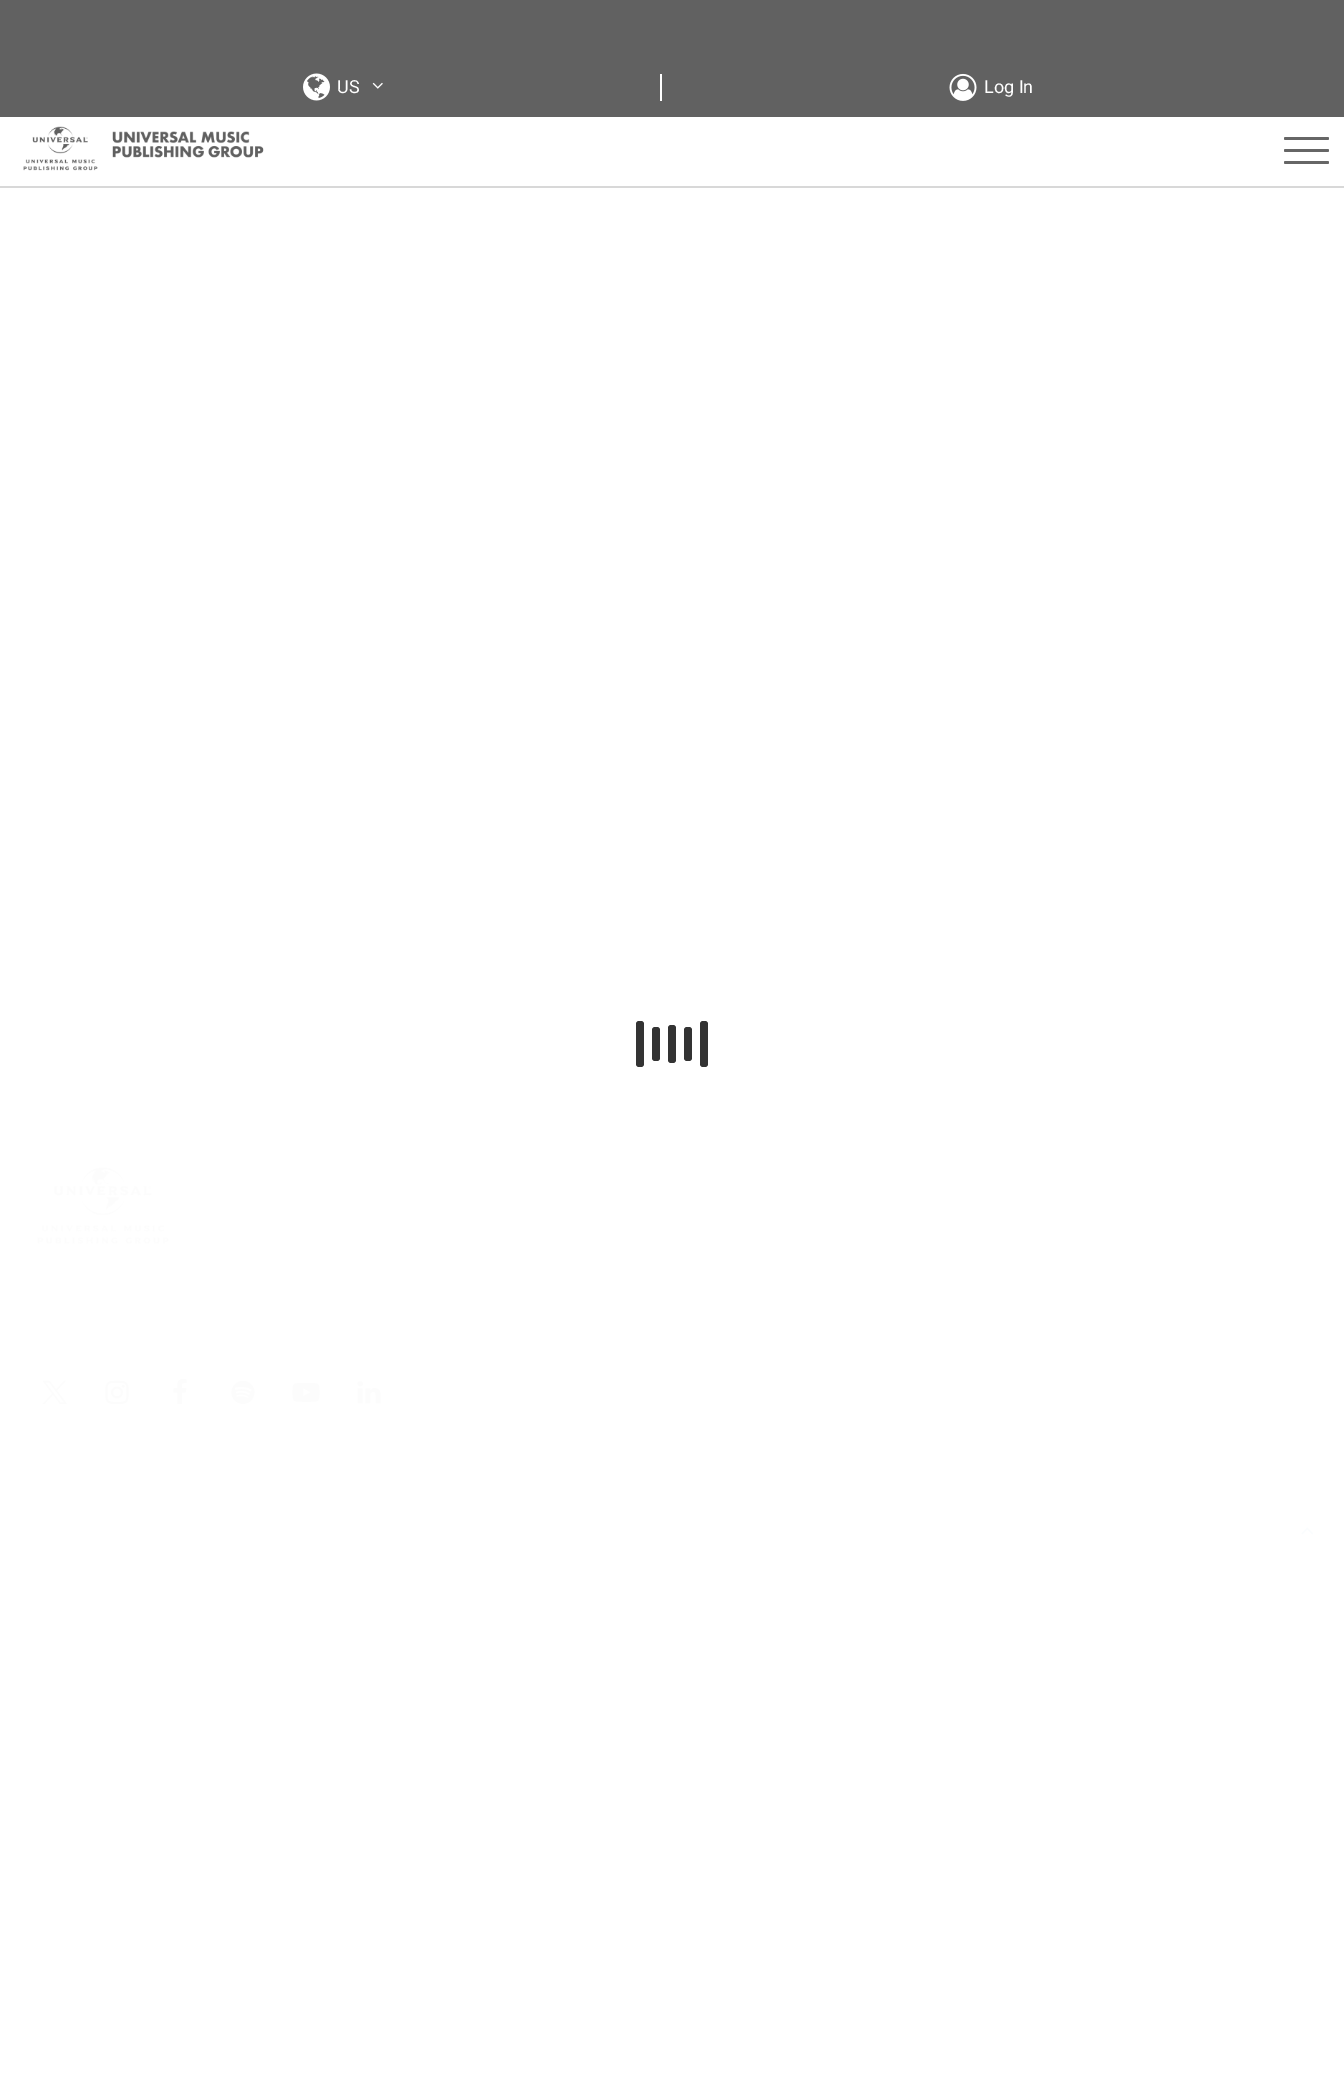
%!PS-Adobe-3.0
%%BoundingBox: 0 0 1344 2087
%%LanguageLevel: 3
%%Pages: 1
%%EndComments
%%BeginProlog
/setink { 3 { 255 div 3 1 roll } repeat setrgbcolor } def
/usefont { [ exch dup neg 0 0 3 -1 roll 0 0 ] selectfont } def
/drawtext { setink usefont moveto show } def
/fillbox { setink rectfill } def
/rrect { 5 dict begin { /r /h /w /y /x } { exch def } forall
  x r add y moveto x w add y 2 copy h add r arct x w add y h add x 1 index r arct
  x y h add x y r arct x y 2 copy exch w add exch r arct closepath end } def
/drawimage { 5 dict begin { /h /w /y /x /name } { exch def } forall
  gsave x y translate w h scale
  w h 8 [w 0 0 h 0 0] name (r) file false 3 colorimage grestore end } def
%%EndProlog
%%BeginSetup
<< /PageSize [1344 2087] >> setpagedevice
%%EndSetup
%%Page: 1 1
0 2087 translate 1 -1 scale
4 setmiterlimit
0 0 1344 2087 255 255 255 fillbox
0 186 1344 2 216 216 216 fillbox
0 0 1344 117 97 97 97 fillbox
(assets/img1.rgb) 303 73 27 28 drawimage
(US) 337 93 /Roboto-Regular 18 255 255 255 drawtext
(assets/img2.rgb) 372 82 11 7 drawimage
660 74 2 27 255 255 255 fillbox
(assets/img3.rgb) 949 73 28 28 drawimage
(Log In) 984 93 /Roboto-Regular 18 255 255 255 drawtext
(assets/img4.rgb) 23 126 241 45 drawimage
102 102 102 setink
1284 149 45 3 1.5 rrect fill
1284 137 45 3 1.5 rrect fill
1284 161 45 3 1.5 rrect fill
51 51 51 setink
636 1021 8 46 3 rrect fill
652 1027 8 34 3 rrect fill
668 1025 8 38 3 rrect fill
684 1027 8 34 3 rrect fill
700 1021 8 46 3 rrect fill
(assets/img5.rgb) 37 1167 132 77 drawimage
(assets/img6.rgb) 42 1380 25 24 drawimage
(assets/img7.rgb) 105 1380 24 24 drawimage
(assets/img8.rgb) 173 1378 14 26 drawimage
(assets/img9.rgb) 231 1380 24 24 drawimage
(assets/img10.rgb) 292 1382 28 20 drawimage
(assets/img11.rgb) 357 1381 24 23 drawimage
(assets/img12.rgb) 1301 1527 13 8 drawimage
showpage
%%EOF
